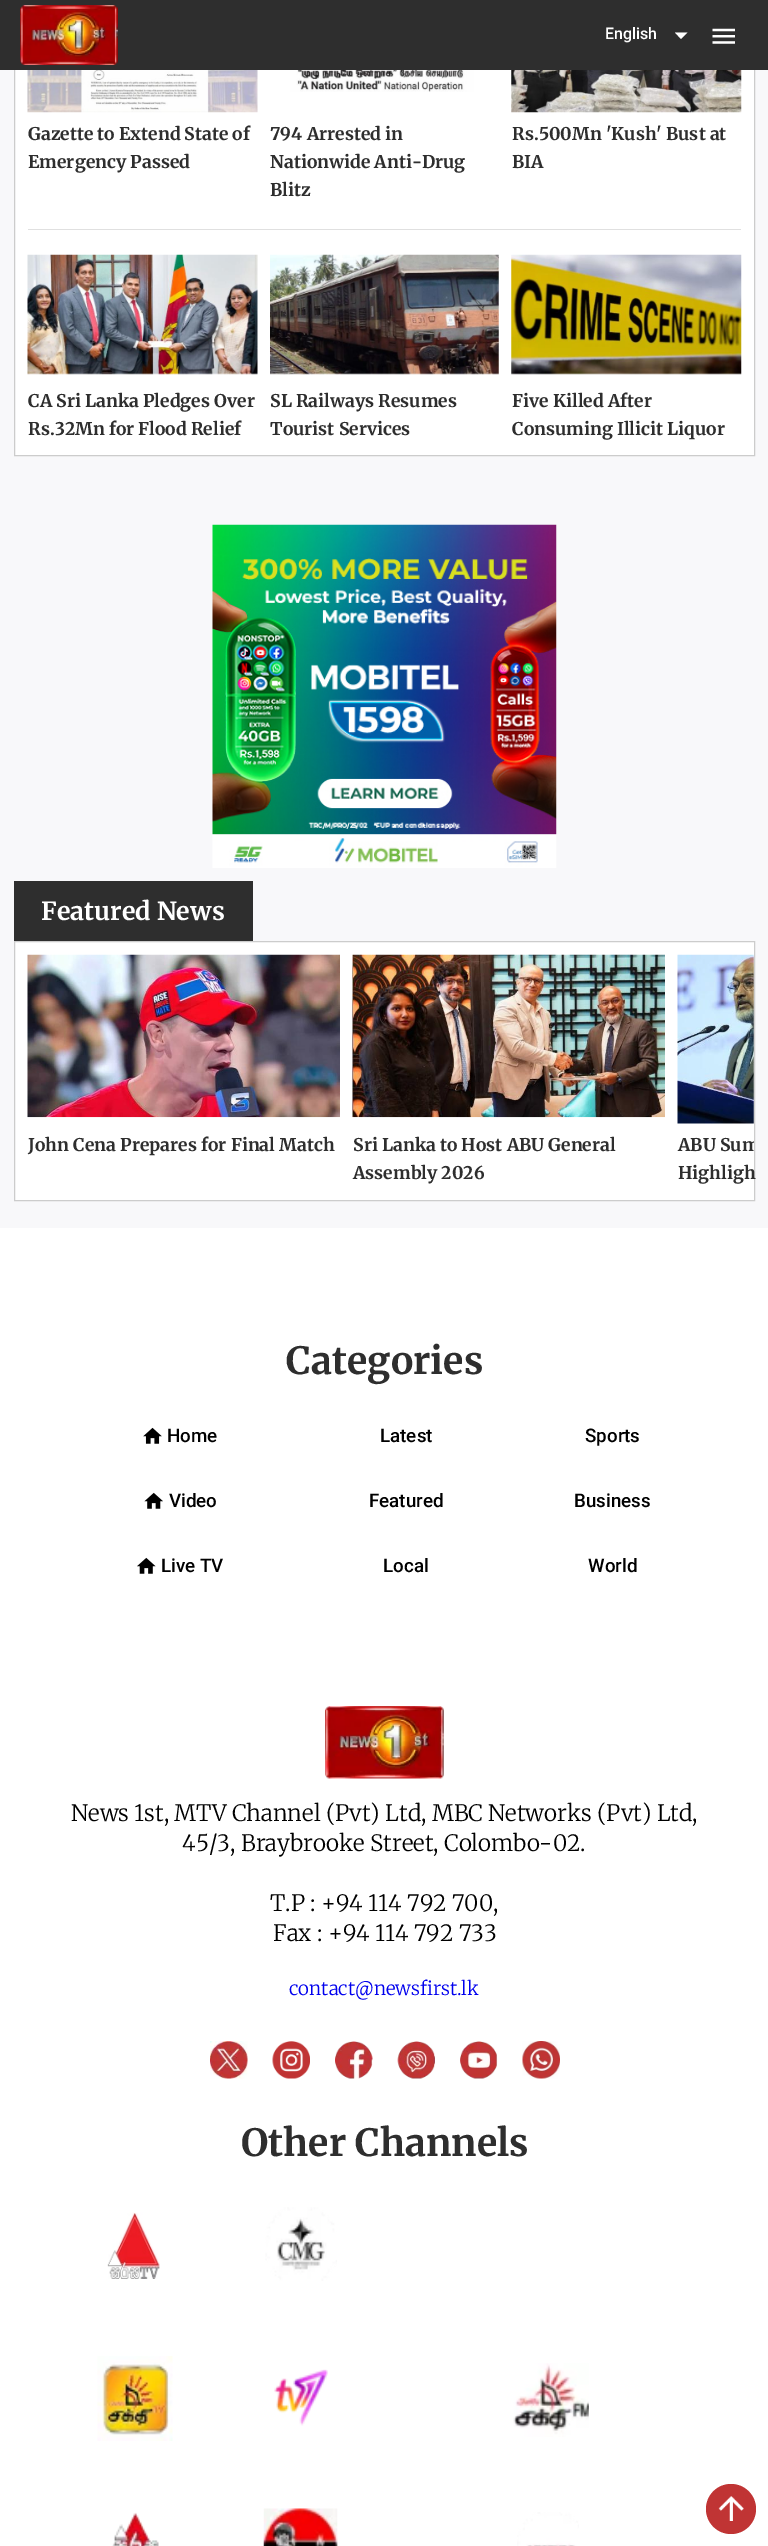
%!PS-Adobe-3.0
%%BoundingBox: 0 0 768 2546
%%LanguageLevel: 3
%%Pages: 1
%%EndComments
%%BeginProlog
/setink { 3 { 255 div 3 1 roll } repeat setrgbcolor } def
/usefont { [ exch dup neg 0 0 3 -1 roll 0 0 ] selectfont } def
/drawtext { setink usefont moveto show } def
/fillbox { setink rectfill } def
/disc { newpath 0 360 arc closepath } def
/drawimage { 5 dict begin { /h /w /y /x /name } { exch def } forall
  gsave x y translate w h scale
  w h 8 [w 0 0 h 0 0] name (r) file false 3 colorimage grestore end } def
%%EndProlog
%%BeginSetup
<< /PageSize [768 2546] >> setpagedevice
%%EndSetup
%%Page: 1 1
0 2546 translate 1 -1 scale
4 setmiterlimit
0 0 768 2546 255 255 255 fillbox
0 70 768 1158 248 248 250 fillbox
15 70 739 385 255 255 255 fillbox
204 204 204 setink
14.5 -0.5 740 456 rectstroke
0 0 768 70 46 46 46 fillbox
(assets/img1.rgb) 20 5 98 60 drawimage
(English) 605 39 /Roboto-Medium 16 255 255 255 drawtext
675 32.5 moveto 687.5 32.5 lineto 681 39 lineto closepath fill
(assets/img2.rgb) 712 28 23 16 drawimage
(assets/img3.rgb) 27 70 231 43 drawimage
(Gazette to Extend State of) 28 140 /Merriweather-Bold 17.5 46 46 46 drawtext
(Emergency Passed) 28 168 /Merriweather-Bold 17.5 46 46 46 drawtext
(assets/img4.rgb) 290 70 184 22 drawimage
(794 Arrested in) 270 140 /Merriweather-Bold 17.5 46 46 46 drawtext
(Nationwide Anti-Drug) 270 168 /Merriweather-Bold 17.5 46 46 46 drawtext
(Blitz) 270 196 /Merriweather-Bold 17.5 46 46 46 drawtext
(assets/img5.rgb) 511 70 231 43 drawimage
(Rs.500Mn 'Kush' Bust at) 512 140 /Merriweather-Bold 17.5 46 46 46 drawtext
(BIA) 512 168 /Merriweather-Bold 17.5 46 46 46 drawtext
28 229 713 1 224 224 224 fillbox
(assets/img6.rgb) 27 254 231 121 drawimage
(CA Sri Lanka Pledges Over) 28 407 /Merriweather-Bold 17.5 46 46 46 drawtext
(Rs.32Mn for Flood Relief) 28 435 /Merriweather-Bold 17.5 46 46 46 drawtext
(assets/img7.rgb) 270 254 229 121 drawimage
(SL Railways Resumes) 270 407 /Merriweather-Bold 17.5 46 46 46 drawtext
(Tourist Services) 270 435 /Merriweather-Bold 17.5 46 46 46 drawtext
(assets/img8.rgb) 511 254 231 121 drawimage
(Five Killed After) 512 407 /Merriweather-Bold 17.5 46 46 46 drawtext
(Consuming Illicit Liquor) 512 435 /Merriweather-Bold 17.5 46 46 46 drawtext
(assets/img9.rgb) 212 524 345 344 drawimage
14 881 239 60 46 46 46 fillbox
(Featured News) 41 920 /Merriweather-Bold 25 255 255 255 drawtext
14.5 941.5 moveto 754.5 941.5 lineto 754.5 1200.5 lineto 14.5 1200.5 lineto closepath gsave fill grestore
204 204 204 setink
stroke
(assets/img10.rgb) 27 954 313 164 drawimage
(John Cena Prepares for Final Match) 28 1151 /Merriweather-Bold 17.5 46 46 46 drawtext
(assets/img11.rgb) 352 954 313 164 drawimage
(Sri Lanka to Host ABU General) 353 1151 /Merriweather-Bold 17.5 46 46 46 drawtext
(Assembly 2026) 353 1179 /Merriweather-Bold 17.5 46 46 46 drawtext
(assets/img12.rgb) 677 954 77 170 drawimage
gsave
15 943 739 257 rectclip
(ABU Sum) 678 1151 /Merriweather-Bold 17.5 46 46 46 drawtext
grestore
(Highligh) 678 1179 /Merriweather-Bold 17.5 46 46 46 drawtext
(Categories) 286 1374 /Merriweather-Bold 37.5 46 46 46 drawtext
(assets/img13.rgb) 143 1427 19 17 drawimage
(Home) 167 1442 /Roboto-Medium 18.75 0 0 0 drawtext
(Latest) 380 1442 /Roboto-Medium 18.75 0 0 0 drawtext
(Sports) 585 1442 /Roboto-Medium 18.75 0 0 0 drawtext
(assets/img14.rgb) 144 1492 19 17 drawimage
(Video) 169 1507 /Roboto-Medium 18.75 0 0 0 drawtext
(Featured) 369 1507 /Roboto-Medium 18.75 0 0 0 drawtext
(Business) 574 1507 /Roboto-Medium 18.75 0 0 0 drawtext
(assets/img15.rgb) 137 1557 19 17 drawimage
(Live TV) 161 1572 /Roboto-Medium 18.75 0 0 0 drawtext
(Local) 383 1572 /Roboto-Medium 18.75 0 0 0 drawtext
(World) 588 1572 /Roboto-Medium 18.75 0 0 0 drawtext
(assets/img16.rgb) 325 1706 119 73 drawimage
(News 1st, MTV Channel \(Pvt\) Ltd, MBC Networks \(Pvt\) Ltd,) 71 1821 /Merriweather-Light 22.5 0 0 0 drawtext
(45/3, Braybrooke Street, Colombo-02.) 182 1851 /Merriweather-Light 22.5 0 0 0 drawtext
(T.P : +94 114 792 700,) 270 1911 /Merriweather-Light 22.5 0 0 0 drawtext
(Fax : +94 114 792 733) 273 1941 /Merriweather-Light 22.5 0 0 0 drawtext
(contact@newsfirst.lk) 289 1995 /Merriweather-Light 18.75 0 0 238 drawtext
(assets/img17.rgb) 210 2041 38 38 drawimage
(assets/img18.rgb) 272 2041 38 38 drawimage
(assets/img19.rgb) 335 2041 38 38 drawimage
(assets/img20.rgb) 397 2041 38 38 drawimage
(assets/img21.rgb) 460 2041 38 38 drawimage
(assets/img22.rgb) 522 2041 38 38 drawimage
(Other Channels) 241 2156 /Merriweather-Bold 37.5 46 46 46 drawtext
(assets/img23.rgb) 107 2212 53 67 drawimage
(assets/img24.rgb) 265 2207 72 74 drawimage
(assets/img25.rgb) 97 2356 76 85 drawimage
(assets/img26.rgb) 274 2369 54 57 drawimage
(assets/img27.rgb) 513 2363 76 74 drawimage
(assets/img28.rgb) 112 2512 47 34 drawimage
(assets/img29.rgb) 263 2508 75 38 drawimage
(assets/img30.rgb) 517 2512 62 34 drawimage
192 52 52 setink
731 2509 25 disc fill
(assets/img31.rgb) 718 2496 26 25 drawimage
showpage
%%EOF
